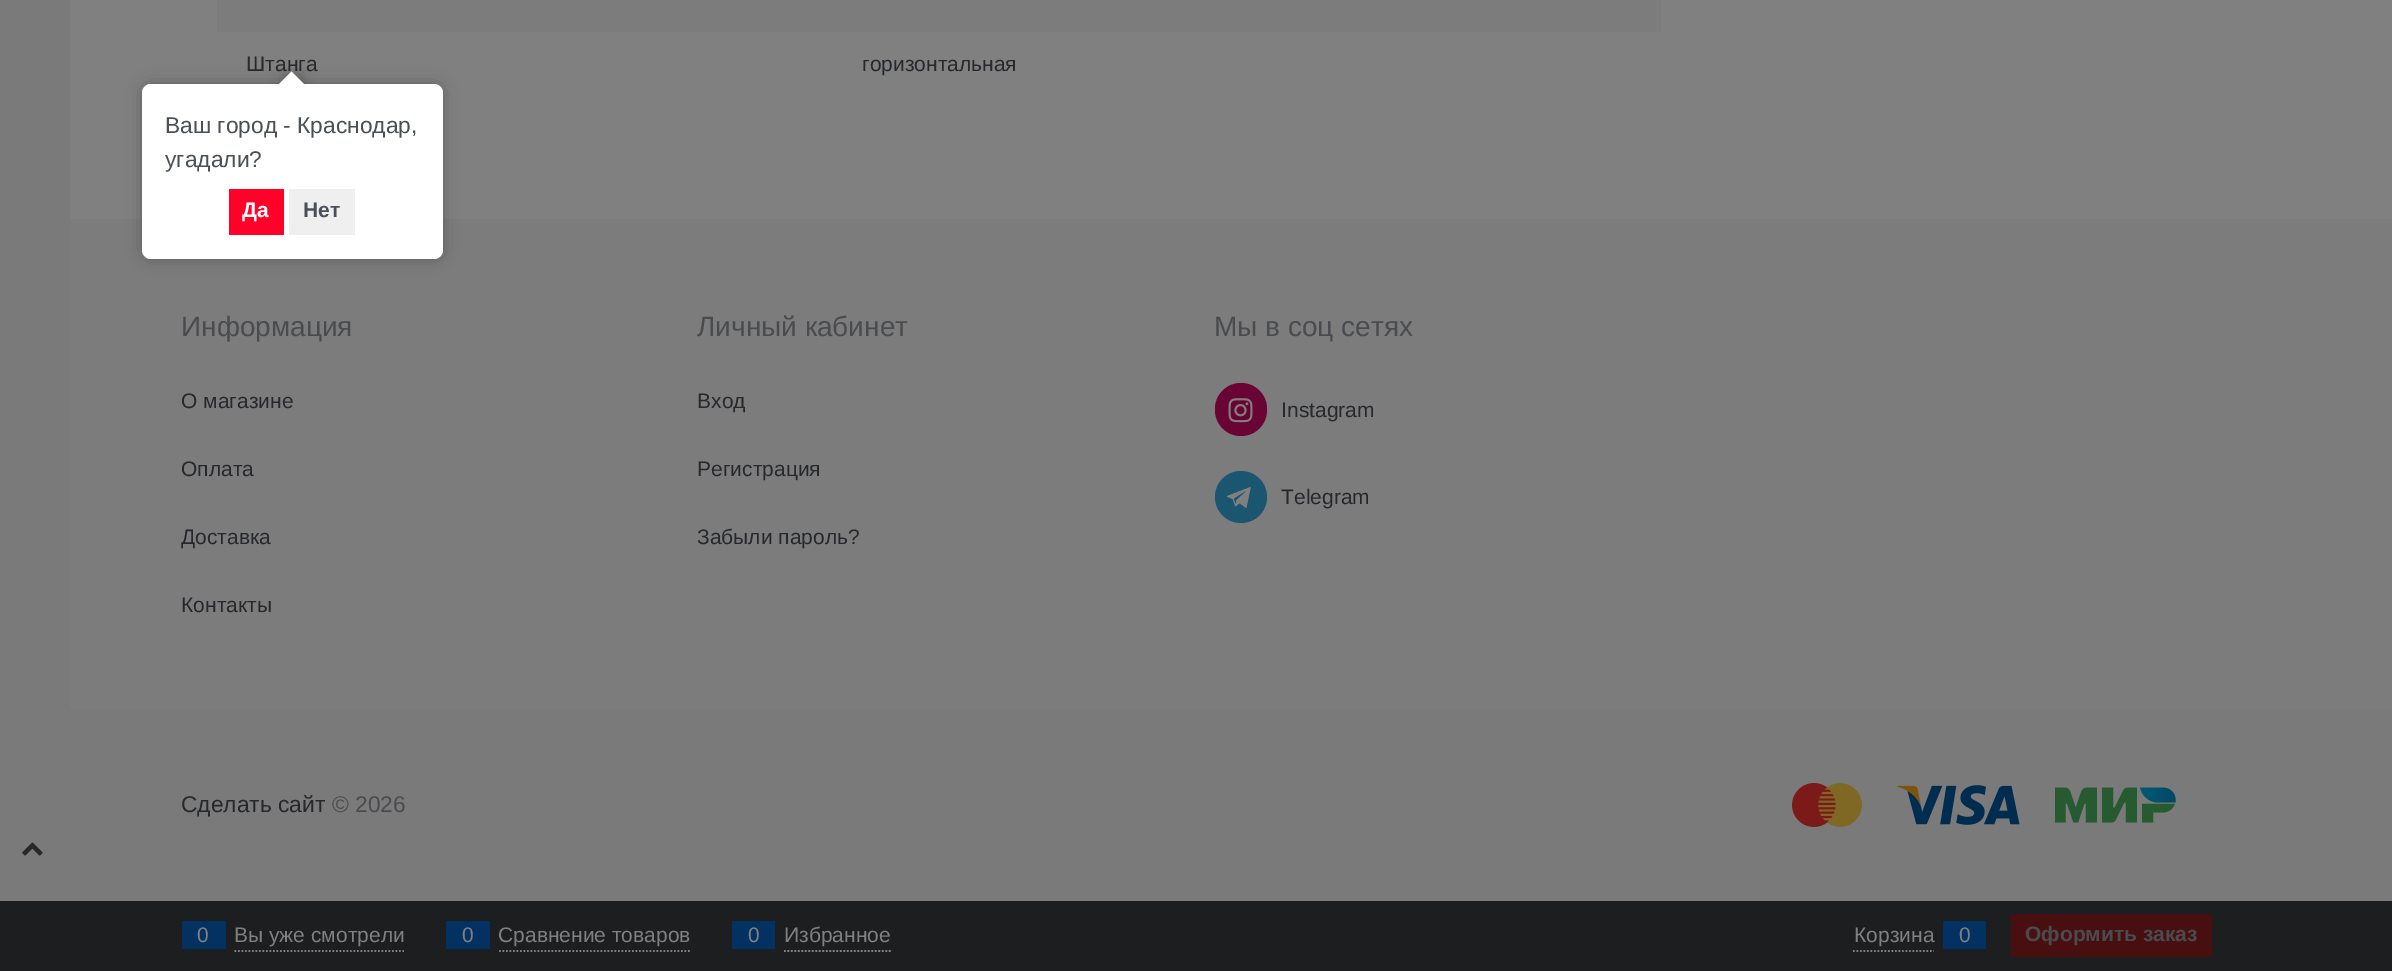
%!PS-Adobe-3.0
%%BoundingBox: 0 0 2392 971
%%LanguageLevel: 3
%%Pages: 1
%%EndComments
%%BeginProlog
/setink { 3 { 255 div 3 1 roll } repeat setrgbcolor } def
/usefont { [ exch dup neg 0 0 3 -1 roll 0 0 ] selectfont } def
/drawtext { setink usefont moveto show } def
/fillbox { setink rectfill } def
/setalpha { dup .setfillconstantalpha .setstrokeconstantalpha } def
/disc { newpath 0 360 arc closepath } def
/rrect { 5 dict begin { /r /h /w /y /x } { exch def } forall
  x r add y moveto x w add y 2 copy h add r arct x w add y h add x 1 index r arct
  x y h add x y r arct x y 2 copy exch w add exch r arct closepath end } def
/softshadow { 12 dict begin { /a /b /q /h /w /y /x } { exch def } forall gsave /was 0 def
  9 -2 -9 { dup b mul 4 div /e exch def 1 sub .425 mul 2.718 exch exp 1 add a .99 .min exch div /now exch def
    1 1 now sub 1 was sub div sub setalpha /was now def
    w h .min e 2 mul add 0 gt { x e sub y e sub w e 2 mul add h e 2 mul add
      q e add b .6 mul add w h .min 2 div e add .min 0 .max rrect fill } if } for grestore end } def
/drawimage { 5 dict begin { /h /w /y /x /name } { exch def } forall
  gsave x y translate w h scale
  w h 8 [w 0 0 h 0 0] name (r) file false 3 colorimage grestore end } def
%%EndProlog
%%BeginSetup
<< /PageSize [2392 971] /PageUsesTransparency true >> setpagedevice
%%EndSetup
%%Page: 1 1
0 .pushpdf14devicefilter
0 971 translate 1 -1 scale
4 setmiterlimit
0 0 2392 971 128 128 128 fillbox
0 0 70 709 122 122 122 fillbox
217 0 1444 32 124 124 124 fillbox
(Штанга) 246 71 /LiberationSans-Regular 21 38 40 44 drawtext
(горизонтальная) 862 71 /LiberationSans-Regular 21 38 40 44 drawtext
0 709 2392 192 122 122 122 fillbox
(assets/img1.rgb) 22 842 21 14 drawimage
70 219 2322 490 124 124 124 fillbox
(Информация) 181 336 /LiberationSans-Regular 28 74 75 78 drawtext
(О магазине) 181 408 /LiberationSans-Regular 21 38 40 44 drawtext
(Оплата) 181 476 /LiberationSans-Regular 21 38 40 44 drawtext
(Доставка) 181 544 /LiberationSans-Regular 21 38 40 44 drawtext
(Контакты) 181 612 /LiberationSans-Regular 21 38 40 44 drawtext
(Личный кабинет) 697 336 /LiberationSans-Regular 28 74 75 78 drawtext
(Вход) 697 408 /LiberationSans-Regular 21 38 40 44 drawtext
(Регистрация) 697 476 /LiberationSans-Regular 21 38 40 44 drawtext
(Забыли пароль?) 697 544 /LiberationSans-Regular 21 38 40 44 drawtext
(Мы в соц сетях) 1214 336 /LiberationSans-Regular 28 74 75 78 drawtext
105 4 53 setink
1215 383 52 53 26 rrect fill
(assets/img2.rgb) 1228 398 25 25 drawimage
(Instagram) 1281 417 /LiberationSans-Regular 21 38 40 44 drawtext
27 86 113 setink
1241 497 26 disc fill
(assets/img3.rgb) 1226 487 25 21 drawimage
(Telegram) 1281 504 /LiberationSans-Regular 21 38 40 44 drawtext
(Сделать сайт) 181 812 /LiberationSans-Regular 22.75 38 40 44 drawtext
(© 2026) 332 812 /LiberationSans-Regular 22.75 74 75 78 drawtext
(assets/img4.rgb) 1792 783 70 44 drawimage
(assets/img5.rgb) 1897 785 123 40 drawimage
(assets/img6.rgb) 2055 787 121 36 drawimage
0 901 2392 70 28 30 32 fillbox
128 128 128 setink
1.8 setlinewidth
[1.75 1.75] 0 setdash
234.5 951 moveto 404 951 lineto stroke
182 921 44 28 3 49 97 fillbox
(0) 197 942 /LiberationSans-Regular 21 128 128 128 drawtext
(Вы уже смотрели) 234 942 /LiberationSans-Regular 21 128 128 128 drawtext
499 951 moveto 691 951 lineto stroke
446 921 44 28 3 49 97 fillbox
(0) 462 942 /LiberationSans-Regular 21 128 128 128 drawtext
(Сравнение товаров) 498 942 /LiberationSans-Regular 21 128 128 128 drawtext
784 951 moveto 891 951 lineto stroke
732 921 43 28 3 49 97 fillbox
(0) 748 942 /LiberationSans-Regular 21 128 128 128 drawtext
(Избранное) 784 942 /LiberationSans-Regular 21 128 128 128 drawtext
1853 951 moveto 1934 951 lineto stroke
(Корзина) 1854 942 /LiberationSans-Regular 21 128 128 128 drawtext
1943 921 43 28 3 49 97 fillbox
(0) 1959 942 /LiberationSans-Regular 21 128 128 128 drawtext
2011 914 201 43 71 15 16 fillbox
(Оформить заказ) 2025 941 /LiberationSans-Bold 21 74 75 78 drawtext
0 0 0 setink
142 84 301 175 9 8 0.25 softshadow
255 255 255 setink
142 84 301 175 9 rrect fill
gsave
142 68 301 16 rectclip
0 0 0 setink
284 75 17 18 0 8 0.25 softshadow
grestore
gsave
142 68 301 16 rectclip
291.5 71.5 moveto 304 84 lineto 291.5 96.5 lineto 279 84 lineto closepath fill
grestore
(Ваш город - Краснодар,) 165 133 /LiberationSans-Regular 22.75 75 79 88 drawtext
(угадали?) 165 167 /LiberationSans-Regular 22.75 75 79 88 drawtext
229 189 55 46 255 1 41 fillbox
(Да) 242 217 /LiberationSans-Bold 21 255 255 255 drawtext
289 189 66 46 239 239 239 fillbox
(Нет) 303 217 /LiberationSans-Bold 21 75 79 88 drawtext
.poppdf14devicefilter showpage
%%EOF
